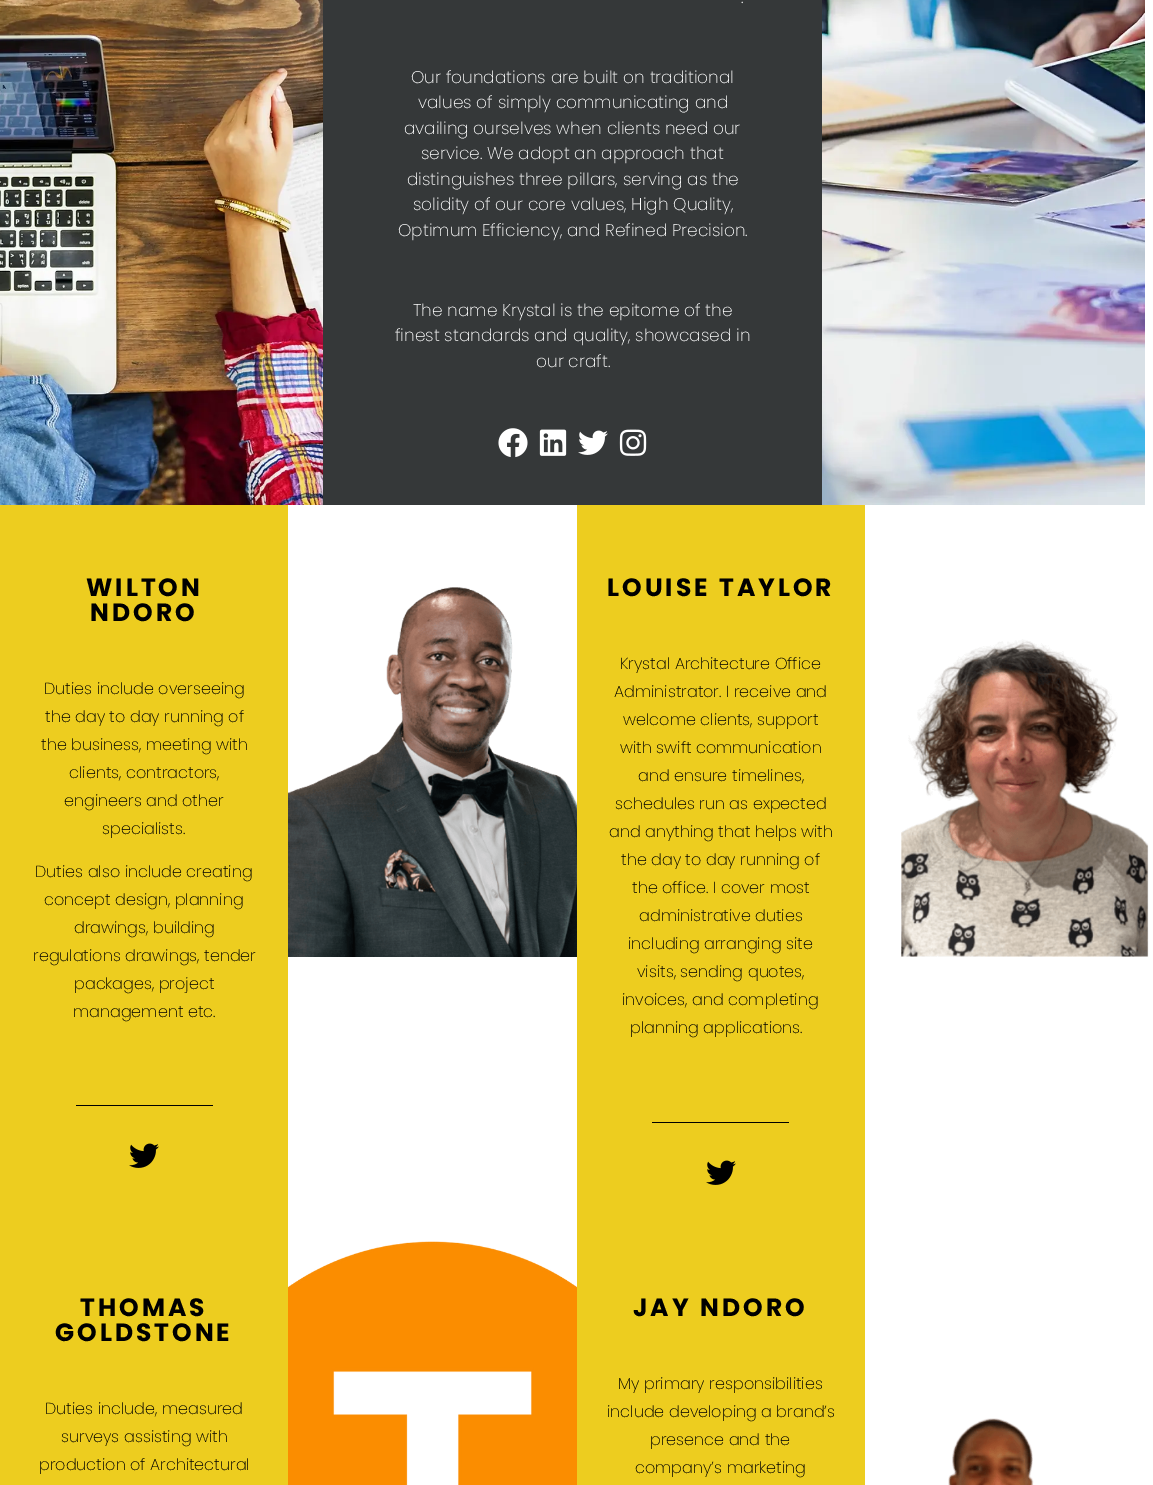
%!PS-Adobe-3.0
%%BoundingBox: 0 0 1153 1485
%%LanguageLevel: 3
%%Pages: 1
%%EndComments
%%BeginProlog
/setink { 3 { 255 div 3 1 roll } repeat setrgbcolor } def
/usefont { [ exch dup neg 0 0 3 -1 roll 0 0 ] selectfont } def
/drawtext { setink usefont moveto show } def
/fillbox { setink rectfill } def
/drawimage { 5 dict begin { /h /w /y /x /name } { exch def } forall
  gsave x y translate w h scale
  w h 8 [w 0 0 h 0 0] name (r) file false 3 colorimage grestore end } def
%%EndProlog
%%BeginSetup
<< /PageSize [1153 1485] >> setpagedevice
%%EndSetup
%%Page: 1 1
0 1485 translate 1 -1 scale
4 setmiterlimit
0 0 1153 1485 255 255 255 fillbox
(assets/img1.rgb) 0 0 323 505 drawimage
323 0 499 505 53 56 57 fillbox
(.) 741 3 /Poppins-ExtraLight 17 255 255 255 drawtext
(Our foundations are built on traditional) 411 83 /Poppins-ExtraLight 17 255 255 255 drawtext
(values of simply communicating and) 418 108 /Poppins-ExtraLight 17 255 255 255 drawtext
(availing ourselves when clients need our) 404 134 /Poppins-ExtraLight 17 255 255 255 drawtext
(service. We adopt an approach that) 421 159 /Poppins-ExtraLight 17 255 255 255 drawtext
(distinguishes three pillars, serving as the) 407 185 /Poppins-ExtraLight 17 255 255 255 drawtext
(solidity of our core values, High Quality,) 413 210 /Poppins-ExtraLight 17 255 255 255 drawtext
(Optimum Efficiency, and Refined Precision.) 398 236 /Poppins-ExtraLight 17 255 255 255 drawtext
(The name Krystal is the epitome of the) 413 316 /Poppins-ExtraLight 17 255 255 255 drawtext
(finest standards and quality, showcased in) 395 341 /Poppins-ExtraLight 17 255 255 255 drawtext
(our craft.) 536 367 /Poppins-ExtraLight 17 255 255 255 drawtext
(assets/img2.rgb) 498 428 30 30 drawimage
(assets/img3.rgb) 539 429 28 27 drawimage
(assets/img4.rgb) 578 430 30 25 drawimage
(assets/img5.rgb) 619 429 28 27 drawimage
(assets/img6.rgb) 822 0 323 505 drawimage
0 505 288 980 237 205 31 fillbox
/Poppins-Bold 25 usefont
0 0 0 setink
86 596 moveto 3 0 (WILTON) ashow
90 621 moveto 3 0 (NDORO) ashow
(Duties include overseeing) 44 694 /Poppins-ExtraLight 16 0 0 0 drawtext
(the day to day running of) 45 722 /Poppins-ExtraLight 16 0 0 0 drawtext
(the business, meeting with) 41 750 /Poppins-ExtraLight 16 0 0 0 drawtext
(clients, contractors,) 69 778 /Poppins-ExtraLight 16 0 0 0 drawtext
(engineers and other) 64 806 /Poppins-ExtraLight 16 0 0 0 drawtext
(specialists.) 102 834 /Poppins-ExtraLight 16 0 0 0 drawtext
(Duties also include creating) 35 877 /Poppins-ExtraLight 16 0 0 0 drawtext
(concept design, planning) 44 905 /Poppins-ExtraLight 16 0 0 0 drawtext
(drawings, building) 74 933 /Poppins-ExtraLight 16 0 0 0 drawtext
(regulations drawings, tender) 33 961 /Poppins-ExtraLight 16 0 0 0 drawtext
(packages, project) 74 989 /Poppins-ExtraLight 16 0 0 0 drawtext
(management etc.) 73 1017 /Poppins-ExtraLight 16 0 0 0 drawtext
76 1105 137 1 0 0 0 fillbox
(assets/img7.rgb) 129 1143 30 25 drawimage
(assets/img8.rgb) 288 587 289 370 drawimage
577 505 288 980 237 205 31 fillbox
/Poppins-Bold 25 usefont
0 0 0 setink
607 596 moveto 3 0 (LOUISE TAYLOR) ashow
(Krystal Architecture Office) 620 669 /Poppins-ExtraLight 16 0 0 0 drawtext
(Administrator. I receive and) 614 697 /Poppins-ExtraLight 16 0 0 0 drawtext
(welcome clients, support) 623 725 /Poppins-ExtraLight 16 0 0 0 drawtext
(with swift communication) 620 753 /Poppins-ExtraLight 16 0 0 0 drawtext
(and ensure timelines,) 638 781 /Poppins-ExtraLight 16 0 0 0 drawtext
(schedules run as expected) 615 809 /Poppins-ExtraLight 16 0 0 0 drawtext
(and anything that helps with) 609 837 /Poppins-ExtraLight 16 0 0 0 drawtext
(the day to day running of) 621 865 /Poppins-ExtraLight 16 0 0 0 drawtext
(the office. I cover most) 632 893 /Poppins-ExtraLight 16 0 0 0 drawtext
(administrative duties) 639 921 /Poppins-ExtraLight 16 0 0 0 drawtext
(including arranging site) 628 949 /Poppins-ExtraLight 16 0 0 0 drawtext
(visits, sending quotes,) 637 977 /Poppins-ExtraLight 16 0 0 0 drawtext
(invoices, and completing) 622 1005 /Poppins-ExtraLight 16 0 0 0 drawtext
(planning applications.) 630 1033 /Poppins-ExtraLight 16 0 0 0 drawtext
652 1122 137 1 0 0 0 fillbox
(assets/img7.rgb) 706 1160 30 25 drawimage
(assets/img9.rgb) 901 639 248 318 drawimage
/Poppins-Bold 25 usefont
80 1316 moveto 3 0 (THOMAS) ashow
55 1341 moveto 3 0 (GOLDSTONE) ashow
(Duties include, measured) 45 1414 /Poppins-ExtraLight 16 0 0 0 drawtext
(surveys assisting with) 61 1442 /Poppins-ExtraLight 16 0 0 0 drawtext
(production of Architectural) 39 1470 /Poppins-ExtraLight 16 0 0 0 drawtext
(assets/img10.rgb) 288 1241 289 244 drawimage
/Poppins-Bold 25 usefont
633 1316 moveto 3 0 (JAY NDORO) ashow
(My primary responsibilities) 618 1389 /Poppins-ExtraLight 16 0 0 0 drawtext
(include developing a brand’s) 607 1417 /Poppins-ExtraLight 16 0 0 0 drawtext
(presence and the) 650 1445 /Poppins-ExtraLight 16 0 0 0 drawtext
(company’s marketing) 635 1473 /Poppins-ExtraLight 16 0 0 0 drawtext
(assets/img11.rgb) 948 1418 86 67 drawimage
showpage
%%EOF
